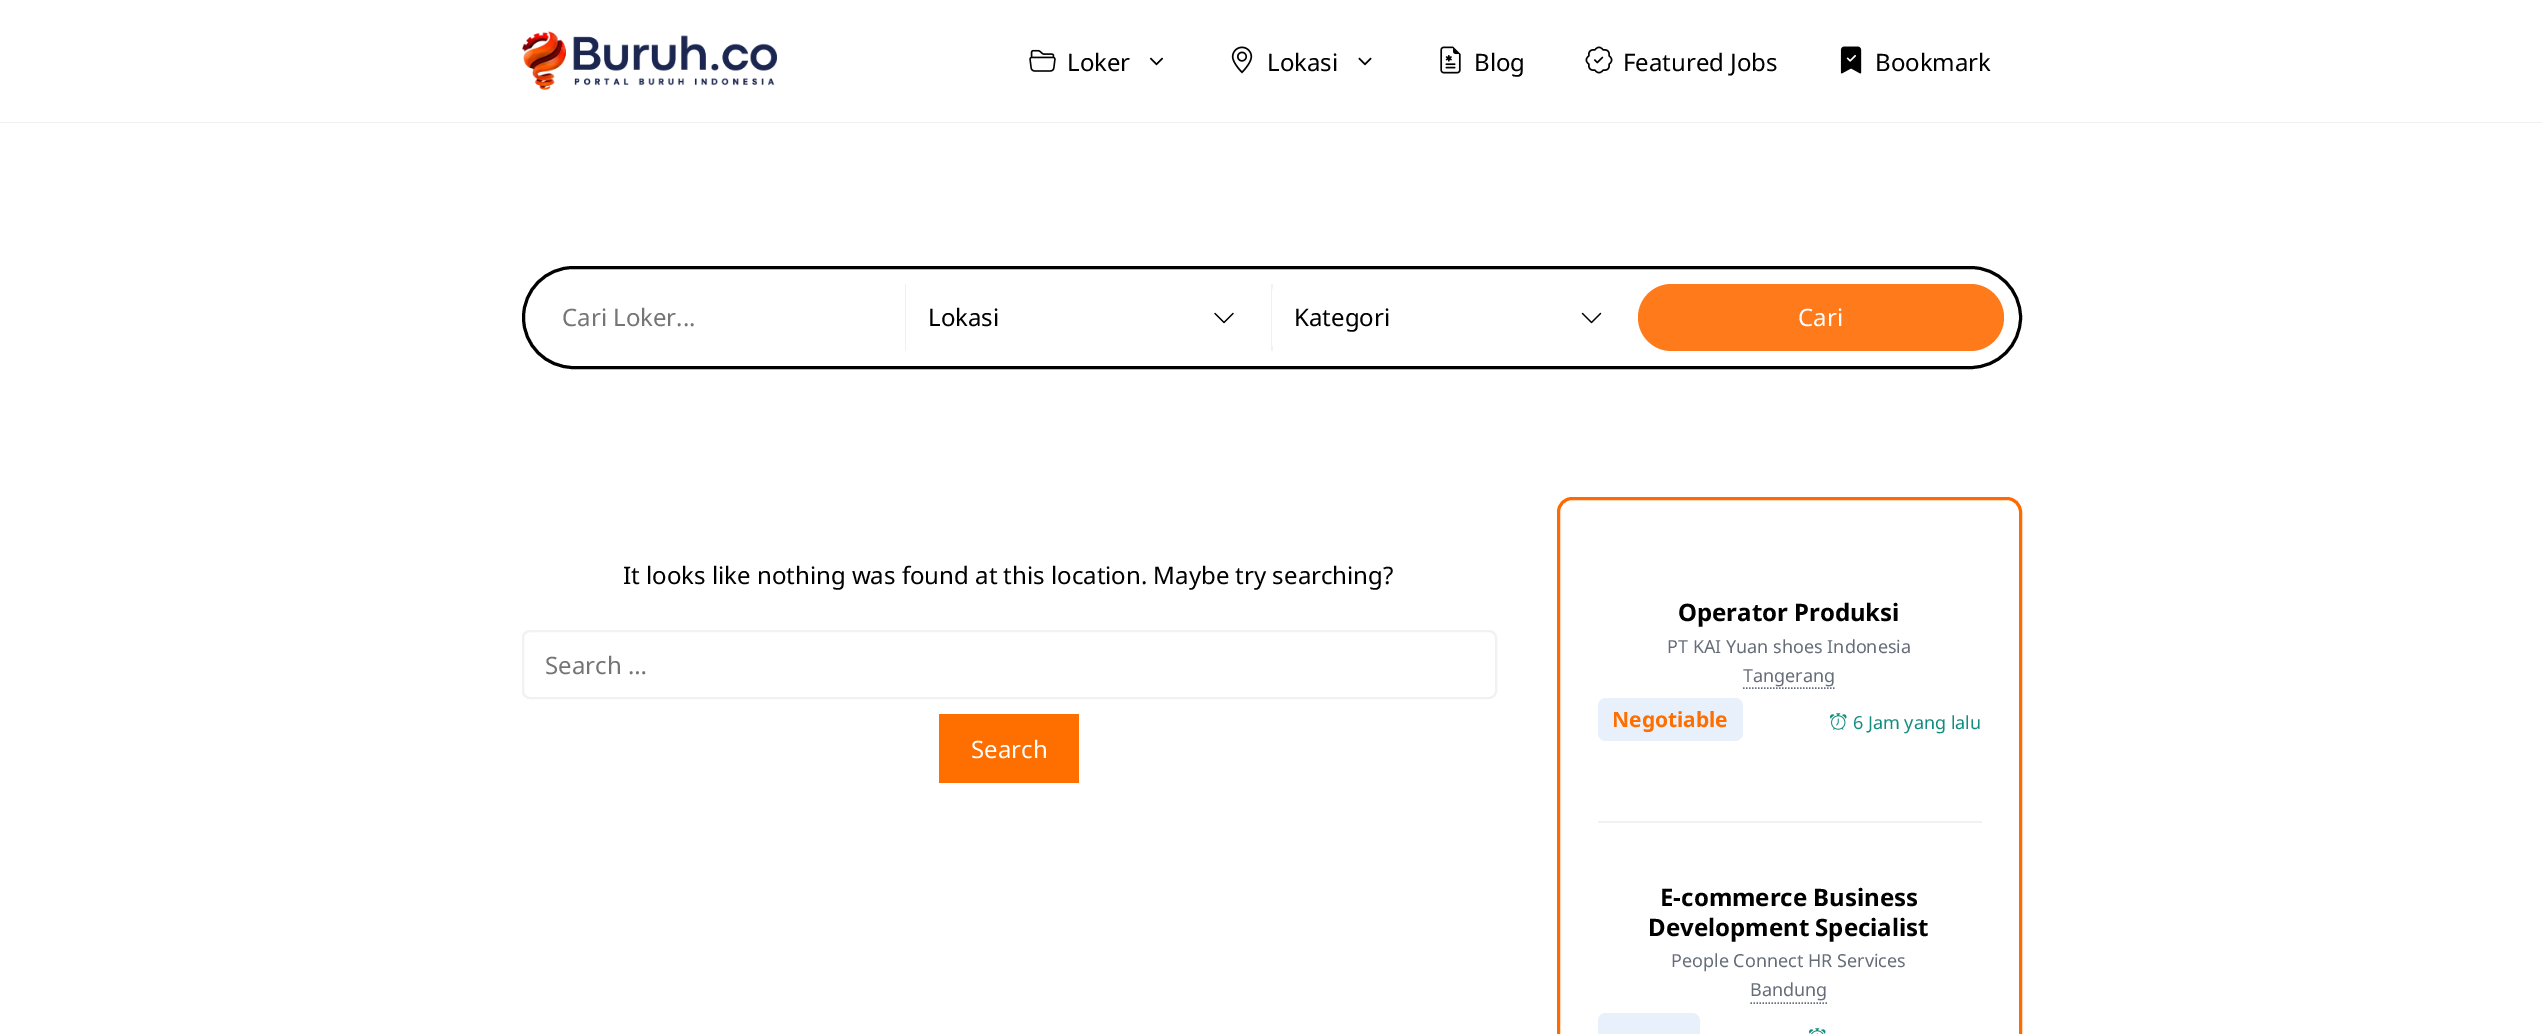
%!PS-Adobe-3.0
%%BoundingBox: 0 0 2542 1034
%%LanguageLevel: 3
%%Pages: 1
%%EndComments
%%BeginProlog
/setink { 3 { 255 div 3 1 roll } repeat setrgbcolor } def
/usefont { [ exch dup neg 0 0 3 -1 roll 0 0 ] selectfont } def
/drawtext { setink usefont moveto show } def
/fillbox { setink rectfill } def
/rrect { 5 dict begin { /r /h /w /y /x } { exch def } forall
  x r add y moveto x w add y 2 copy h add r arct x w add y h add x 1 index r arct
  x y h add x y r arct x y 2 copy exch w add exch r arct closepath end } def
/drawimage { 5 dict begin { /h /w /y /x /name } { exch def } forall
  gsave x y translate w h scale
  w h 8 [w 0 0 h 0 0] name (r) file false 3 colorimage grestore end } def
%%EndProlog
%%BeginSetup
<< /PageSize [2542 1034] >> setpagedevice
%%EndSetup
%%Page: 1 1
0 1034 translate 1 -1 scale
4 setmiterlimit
0 0 2542 1034 255 255 255 fillbox
0 122 2542 1 241 241 241 fillbox
(assets/img1.rgb) 522 31 255 59 drawimage
(assets/img2.rgb) 1029 49 27 23 drawimage
(Loker) 1067 71 /NotoSans-Regular 24 0 0 0 drawtext
(assets/img3.rgb) 1149 57 15 9 drawimage
(assets/img4.rgb) 1231 46 22 28 drawimage
(Lokasi) 1267 71 /NotoSans-Regular 24 0 0 0 drawtext
(assets/img5.rgb) 1358 57 14 9 drawimage
(assets/img6.rgb) 1440 46 21 28 drawimage
(Blog) 1474 71 /NotoSans-Regular 24 0 0 0 drawtext
(assets/img7.rgb) 1585 46 28 28 drawimage
(Featured Jobs) 1623 71 /NotoSans-Regular 24 0 0 0 drawtext
(assets/img8.rgb) 1840 46 22 28 drawimage
(Bookmark) 1875 71 /NotoSans-Regular 24 0 0 0 drawtext
3 setlinewidth
523.5 267.5 1497 100 50 rrect stroke
905 284 1 67 241 241 241 fillbox
(Cari Loker...) 562 326 /NotoSans-Regular 24 117 117 117 drawtext
(assets/img9.rgb) 1214 312 20 12 drawimage
1271 284 2 67 241 241 241 fillbox
(Lokasi) 928 326 /NotoSans-Regular 24 0 0 0 drawtext
255 255 255 setink
1272 284 366 67 8 rrect fill
(assets/img10.rgb) 1581 312 21 12 drawimage
(Kategori) 1294 326 /NotoSans-Regular 24 0 0 0 drawtext
255 122 27 setink
1638 284 366 67 33.5 rrect fill
(Cari) 1798 326 /NotoSans-Regular 24 255 255 255 drawtext
(It looks like nothing was found at this location. Maybe try searching?) 623 584 /NotoSans-Regular 24 0 0 0 drawtext
241 241 241 setink
2 setlinewidth
523 631 973 67 7 rrect stroke
(Search …) 545 674 /NotoSans-Regular 24 117 117 117 drawtext
939 714 140 69 255 111 0 fillbox
(Search) 971 758 /NotoSans-Regular 24 255 255 255 drawtext
255 106 0 setink
3 setlinewidth
1558.5 498.5 462 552 13.5 rrect stroke
1598 821 384 2 241 241 241 fillbox
(Operator Produksi) 1678 621 /NotoSans-Bold 24 0 0 0 drawtext
(PT KAI Yuan shoes Indonesia) 1667 653 /NotoSans-Regular 18 101 109 120 drawtext
(Tangerang) 1743 682 /NotoSans-Regular 18 101 109 120 drawtext
1.5 setlinewidth
[1.5 1.5] 0 setdash
1743 688 moveto 1834.5 688 lineto stroke
(assets/img11.rgb) 1830 713 17 17 drawimage
(6 Jam yang lalu) 1853 729 /NotoSans-Regular 18 18 140 126 drawtext
232 241 251 setink
1598 698 145 43 8 rrect fill
(Negotiable) 1612 727 /NotoSans-Bold 21 255 111 0 drawtext
(E-commerce Business) 1660 906 /NotoSans-Bold 24 0 0 0 drawtext
(Development Specialist) 1648 936 /NotoSans-Bold 24 0 0 0 drawtext
(People Connect HR Services) 1671 967 /NotoSans-Regular 18 101 109 120 drawtext
(Bandung) 1750 996 /NotoSans-Regular 18 101 109 120 drawtext
1750.5 1003 moveto 1827 1003 lineto stroke
(assets/img12.rgb) 1809 1028 17 6 drawimage
232 241 251 setink
1598 1013 102 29 8 rrect fill
showpage
%%EOF
